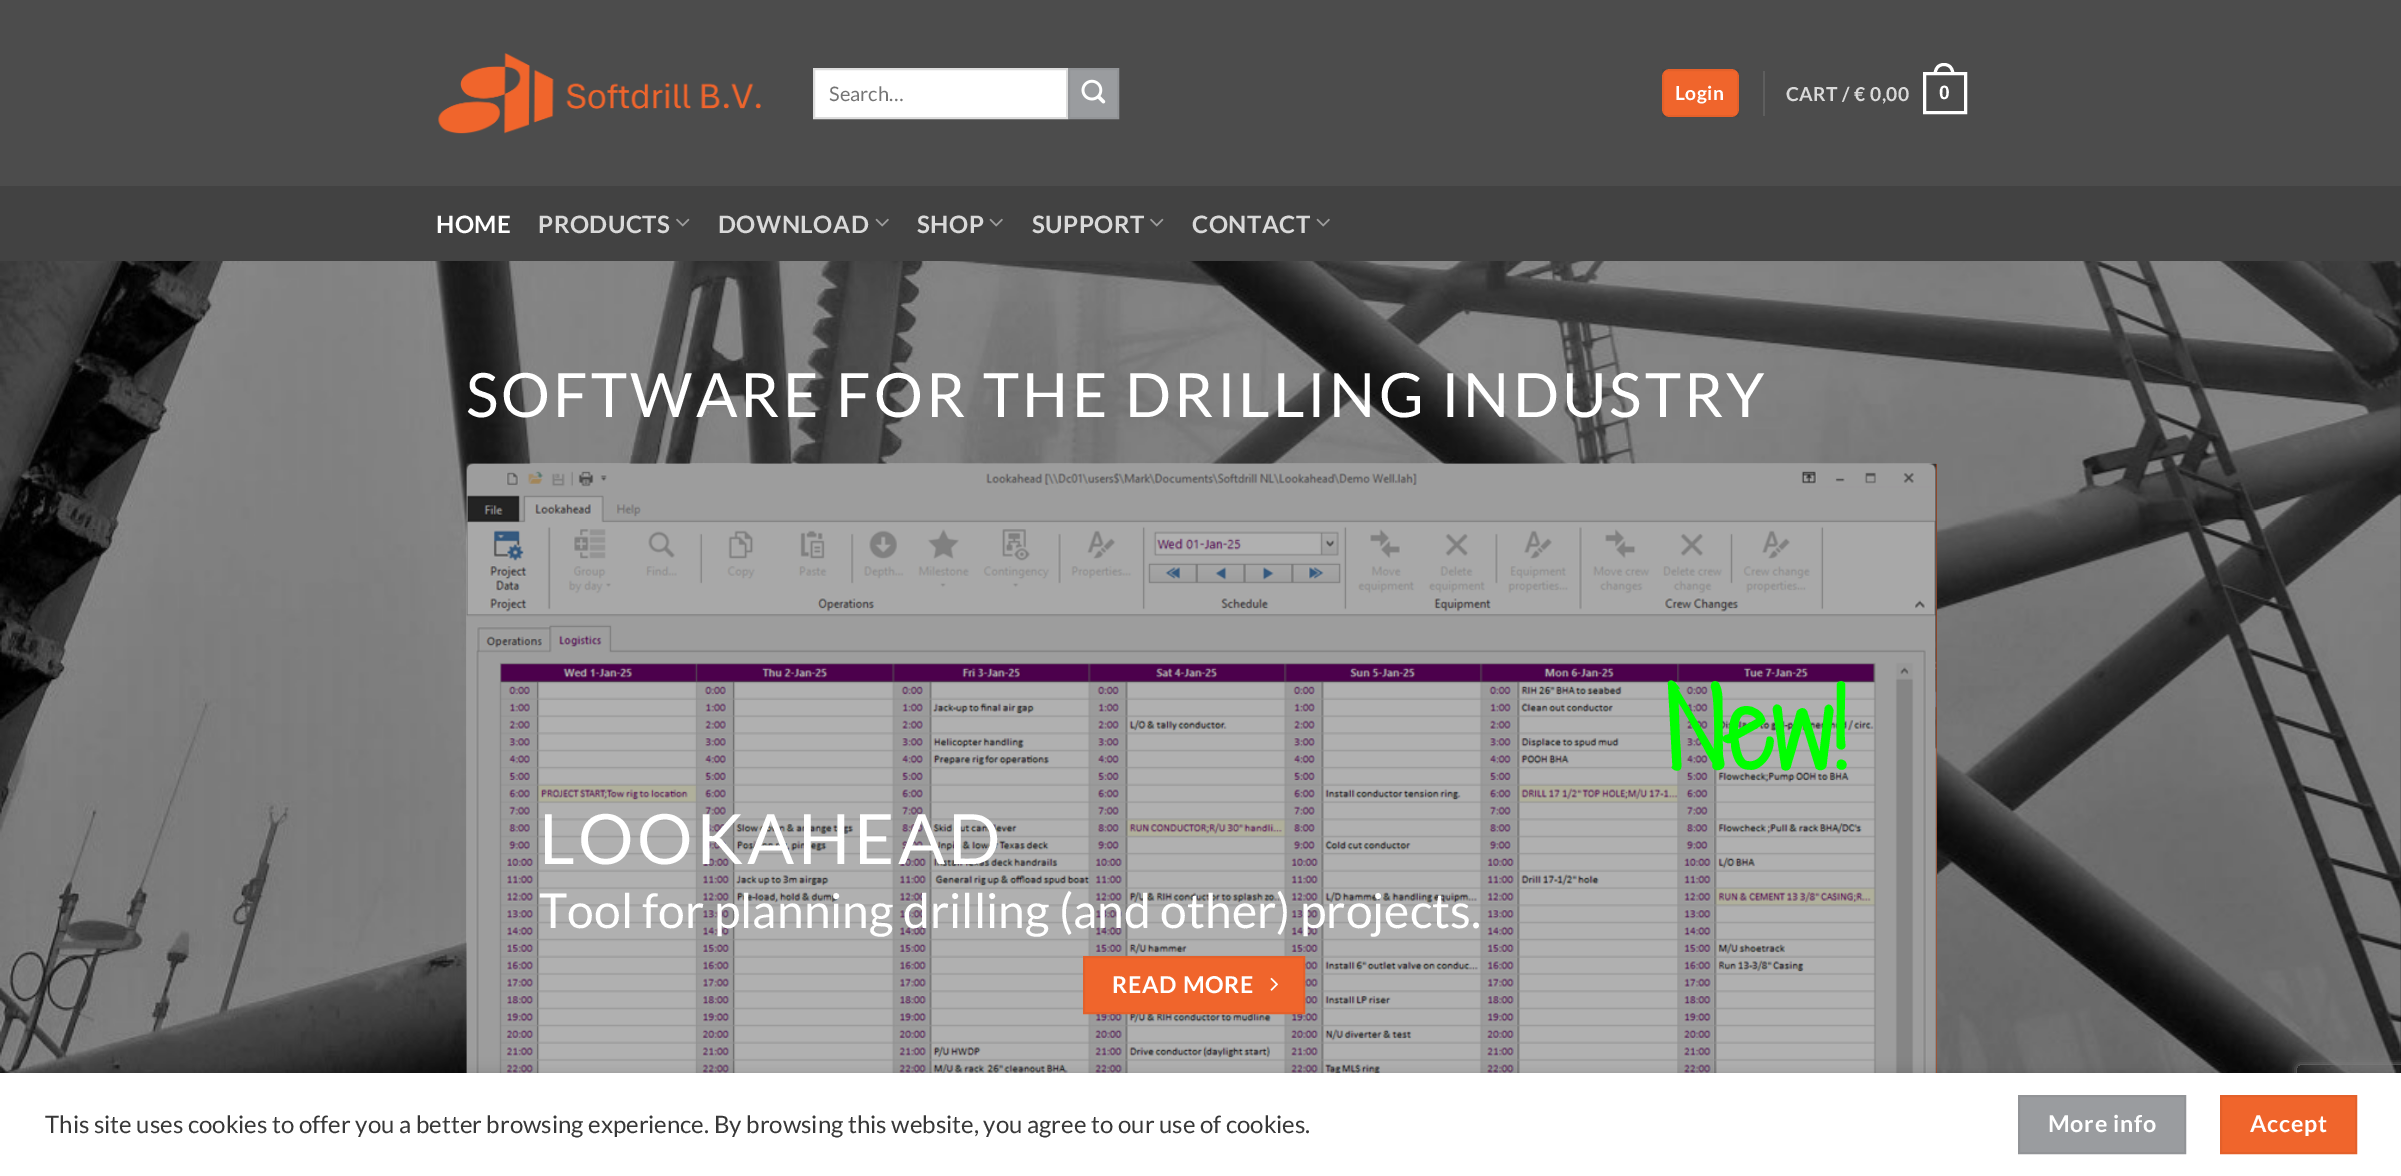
%!PS-Adobe-3.0
%%BoundingBox: 0 0 2401 1176
%%LanguageLevel: 3
%%Pages: 1
%%EndComments
%%BeginProlog
/setink { 3 { 255 div 3 1 roll } repeat setrgbcolor } def
/usefont { [ exch dup neg 0 0 3 -1 roll 0 0 ] selectfont } def
/drawtext { setink usefont moveto show } def
/fillbox { setink rectfill } def
/setalpha { dup .setfillconstantalpha .setstrokeconstantalpha } def
/rrect { 5 dict begin { /r /h /w /y /x } { exch def } forall
  x r add y moveto x w add y 2 copy h add r arct x w add y h add x 1 index r arct
  x y h add x y r arct x y 2 copy exch w add exch r arct closepath end } def
/softshadow { 12 dict begin { /a /b /q /h /w /y /x } { exch def } forall gsave /was 0 def
  9 -2 -9 { dup b mul 4 div /e exch def 1 sub .425 mul 2.718 exch exp 1 add a .99 .min exch div /now exch def
    1 1 now sub 1 was sub div sub setalpha /was now def
    w h .min e 2 mul add 0 gt { x e sub y e sub w e 2 mul add h e 2 mul add
      q e add b .6 mul add w h .min 2 div e add .min 0 .max rrect fill } if } for grestore end } def
/drawimage { 5 dict begin { /h /w /y /x /name } { exch def } forall
  gsave x y translate w h scale
  w h 8 [w 0 0 h 0 0] name (r) file false 3 colorimage grestore end } def
%%EndProlog
%%BeginSetup
<< /PageSize [2401 1176] /PageUsesTransparency true >> setpagedevice
%%EndSetup
%%Page: 1 1
0 .pushpdf14devicefilter
0 1176 translate 1 -1 scale
4 setmiterlimit
0 0 2401 1176 255 255 255 fillbox
0 0 2401 186 76 76 76 fillbox
(assets/img1.rgb) 438 53 323 81 drawimage
255 255 255 setink
814 69 moveto 1067 69 lineto 1067 118 lineto 814 118 lineto closepath gsave fill grestore
221 221 221 setink
2 setlinewidth
stroke
(Search…) 829 101 /Lato-Regular 20 117 117 117 drawtext
154 156 159 setink
1069 69 moveto 1118 69 lineto 1118 118 lineto 1069 118 lineto closepath gsave fill grestore
146 148 151 setink
stroke
(assets/img2.rgb) 1081 79 25 25 drawimage
240 101 44 setink
1662 69 77 48 8 rrect fill
0.05 setalpha
0 0 0 setink
1663 70 75 46 rectstroke
/Lato-Bold 19.25 usefont
1 setalpha
255 255 255 setink
1675 100 moveto 0.5 0 (Login) ashow
1763 71 2 45 94 94 94 fillbox
217 217 217 setink
1786 101 moveto 0.4 0 (CART / € 0,00) ashow
255 255 255 setink
3 setlinewidth
1924.5 73.5 41 39 rectstroke
1944 63 moveto 1951 63 1954.5 68.5 1954.5 75 curveto 1933.5 75 lineto 1933.5 68.5 1937 63 1944 63 curveto closepath 1944 66 moveto 1949.5 66 1951.5 70.5 1951.5 75 curveto 1936.5 75 lineto 1936.5 70.5 1938.5 66 1944 66 curveto closepath eofill
/LiberationSans-Bold 19.25 usefont
1939 99 moveto 0.4 0 (0) ashow
0 186 2401 75 66 66 66 fillbox
/Lato-Bold 24 usefont
255 255 255 setink
436 233 moveto 0.5 0 (HOME) ashow
217 217 217 setink
538 233 moveto 0.5 0 (PRODUCTS) ashow
(assets/img3.rgb) 676 218 14 9 drawimage
718 233 moveto 0.5 0 (DOWNLOAD) ashow
(assets/img4.rgb) 875 218 14 9 drawimage
917 233 moveto 0.5 0 (SHOP) ashow
(assets/img4.rgb) 989 218 14 9 drawimage
1032 233 moveto 0.5 0 (SUPPORT) ashow
(assets/img3.rgb) 1150 218 14 9 drawimage
1192 233 moveto 0.5 0 (CONTACT) ashow
(assets/img4.rgb) 1316 218 14 9 drawimage
(assets/img5.rgb) 0 261 2401 812 drawimage
/Lato-Regular 61.2 usefont
255 255 255 setink
466 417 moveto 3.05 0 (SOFTWARE FOR THE DRILLING INDUSTRY) ashow
1936 464 1 609 240 101 44 fillbox
(assets/img6.rgb) 466 463 1471 610 drawimage
0.31 setalpha
467 464 1470 609 0 0 0 fillbox
1 setalpha
(New!) 1665 770 /ShadowsIntoLightTwo-Bold 104 0 255 0 drawtext
/Lato-Regular 69.5 usefont
255 255 255 setink
539 864 moveto 3.5 0 (LOOKAHEAD) ashow
(Tool for planning drilling \(and other\) projects.) 539 928 /Lato-Regular 48 255 255 255 drawtext
240 101 44 setink
1084 957 moveto 1304 957 lineto 1304 1013 lineto 1084 1013 lineto closepath gsave fill grestore
228 96 42 setink
2 setlinewidth
stroke
/Lato-Bold 23.25 usefont
255 255 255 setink
1112 993 moveto 0.75 0 (READ MORE) ashow
(assets/img7.rgb) 1270 977 8 14 drawimage
0 0 0 setink
0 1073 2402 103 0 7 0.14 softshadow
gsave
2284 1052 moveto 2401 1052 lineto 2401 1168 lineto 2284 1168 lineto closepath 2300 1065 moveto 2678 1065 lineto 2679.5 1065 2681 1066.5 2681 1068 curveto 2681 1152 lineto 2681 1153.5 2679.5 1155 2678 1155 curveto 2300 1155 lineto 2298.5 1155 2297 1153.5 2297 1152 curveto 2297 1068 lineto 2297 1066.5 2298.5 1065 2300 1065 curveto closepath eoclip newpath
128 128 128 setink
2297 1065 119 90 3 4 1 softshadow
grestore
0 1073 2401 103 255 255 255 fillbox
(This site uses cookies to offer you a better browsing experience. By browsing this website, you agree to our use of cookies.) 45 1133 /Lato-Regular 24 56 56 56 drawtext
154 156 159 setink
2019 1096 moveto 2185 1096 lineto 2185 1153 lineto 2019 1153 lineto closepath gsave fill grestore
146 148 151 setink
stroke
/Lato-Bold 23.25 usefont
255 255 255 setink
2048 1132 moveto 0.75 0 (More info) ashow
240 101 44 setink
2221 1096 moveto 2356 1096 lineto 2356 1153 lineto 2221 1153 lineto closepath gsave fill grestore
228 96 42 setink
stroke
255 255 255 setink
2250 1132 moveto 0.75 0 (Accept) ashow
.poppdf14devicefilter showpage
%%EOF
